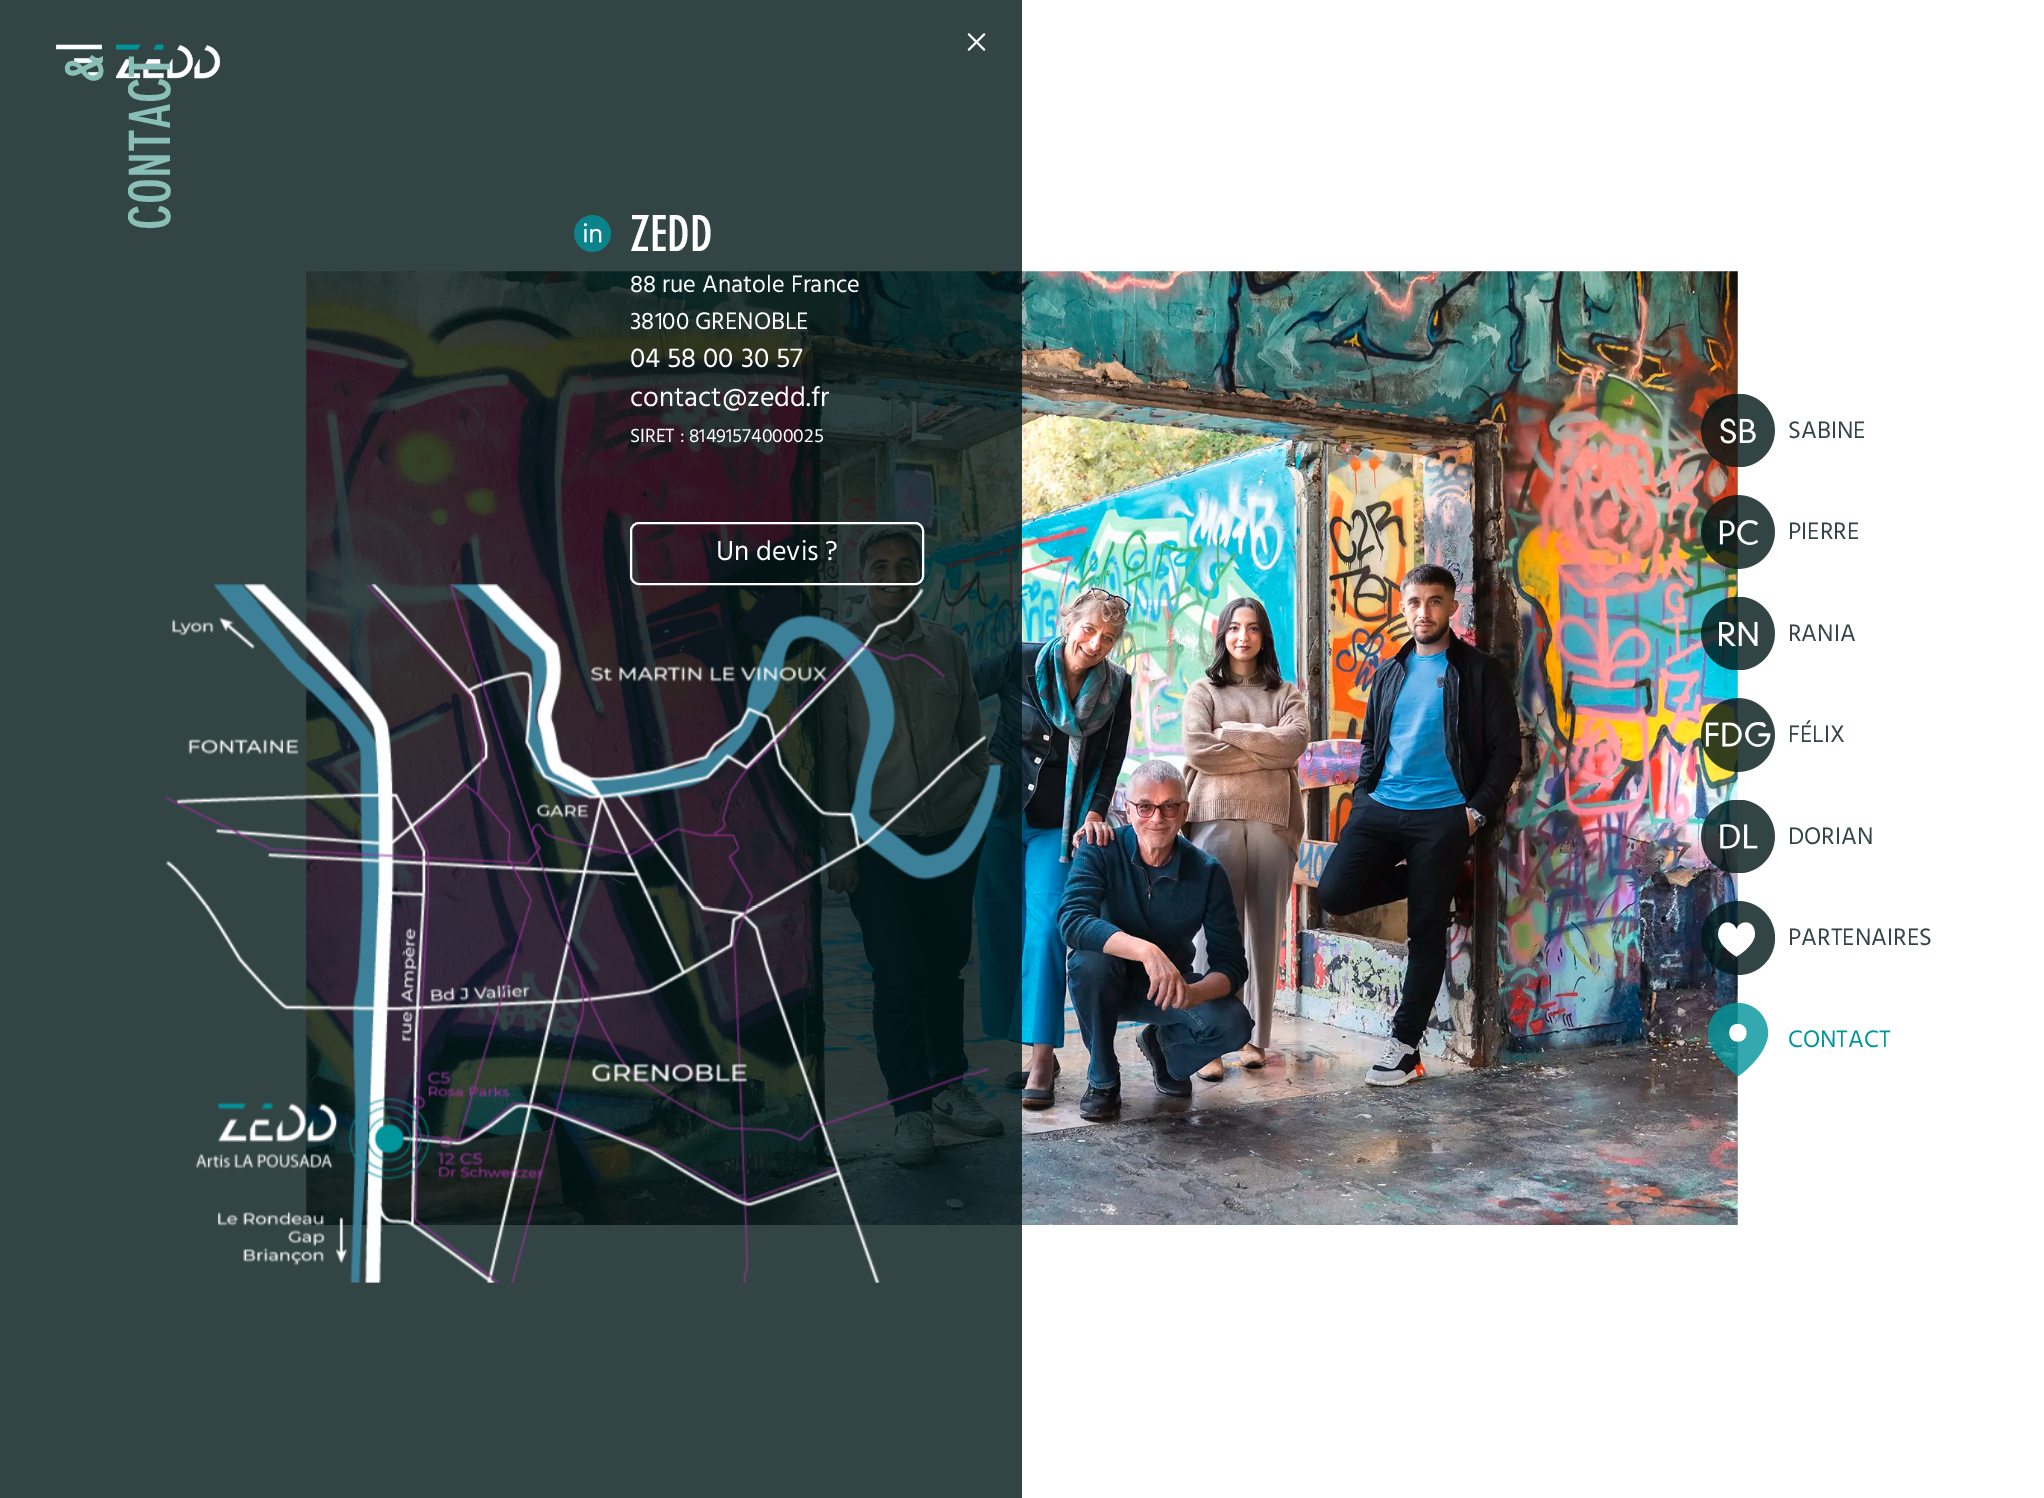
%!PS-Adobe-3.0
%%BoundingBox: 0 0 2044 1498
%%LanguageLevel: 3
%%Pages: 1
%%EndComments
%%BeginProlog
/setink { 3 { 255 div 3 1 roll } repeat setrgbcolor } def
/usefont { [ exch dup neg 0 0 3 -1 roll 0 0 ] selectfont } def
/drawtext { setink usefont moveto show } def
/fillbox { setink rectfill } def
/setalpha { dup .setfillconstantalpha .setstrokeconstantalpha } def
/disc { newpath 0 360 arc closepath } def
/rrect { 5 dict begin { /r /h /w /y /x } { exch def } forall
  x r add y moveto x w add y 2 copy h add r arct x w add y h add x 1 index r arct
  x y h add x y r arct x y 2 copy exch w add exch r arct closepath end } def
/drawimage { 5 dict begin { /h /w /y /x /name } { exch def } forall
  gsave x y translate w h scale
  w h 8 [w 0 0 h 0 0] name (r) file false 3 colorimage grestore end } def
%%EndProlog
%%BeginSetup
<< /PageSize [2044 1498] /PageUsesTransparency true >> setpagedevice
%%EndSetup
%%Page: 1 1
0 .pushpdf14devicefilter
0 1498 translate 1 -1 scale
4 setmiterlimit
0 0 2044 1498 255 255 255 fillbox
(assets/img3.rgb) 306 271 1432 954 drawimage
0.8 setalpha
0 0 1022 1498 0 21 22 fillbox
1 setalpha
(assets/img1.rgb) 56 44 46 34 drawimage
(assets/img2.rgb) 116 44 105 35 drawimage
/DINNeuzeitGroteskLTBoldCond-Bold 56 usefont
137 191 183 setink
gsave 103 83 translate -90 rotate 0 0 moveto (&) show grestore
gsave 170 230 translate -90 rotate 0 0 moveto (CONTACT) show grestore
(assets/img4.rgb) 967 33 19 18 drawimage
(assets/img5.rgb) 574 215 37 37 drawimage
(ZEDD) 630 251 /DINNeuzeitGroteskLTBoldCond-Bold 49 255 255 255 drawtext
(88 rue Anatole France) 630 292 /HindMadurai-Regular 24.5 255 255 255 drawtext
(38100 GRENOBLE) 630 329 /HindMadurai-Regular 24.5 255 255 255 drawtext
(04 58 00 30 57) 630 367 /HindMadurai-Regular 28 255 255 255 drawtext
(contact@zedd.fr) 630 406 /HindMadurai-Regular 28 255 255 255 drawtext
(SIRET : 81491574000025) 630 442 /HindMadurai-Regular 19.5 255 255 255 drawtext
(assets/img6.rgb) 164 583 838 700 drawimage
2 setlinewidth
631 523 292 61 8 rrect stroke
(Un devis ?) 716 560 /HindMadurai-Regular 28 255 255 255 drawtext
(assets/img7.rgb) 1701 394 74 73 drawimage
(SABINE) 1788 438 /HindMadurai-Regular 24.5 51 68 69 drawtext
(assets/img8.rgb) 1701 495 74 74 drawimage
(PIERRE) 1788 539 /HindMadurai-Regular 24.5 51 68 69 drawtext
(assets/img9.rgb) 1701 597 74 73 drawimage
(RANIA) 1788 641 /HindMadurai-Regular 24.5 51 68 69 drawtext
(assets/img10.rgb) 1701 698 74 74 drawimage
(FÉLIX) 1788 742 /HindMadurai-Regular 24.5 51 68 69 drawtext
(assets/img11.rgb) 1701 800 74 73 drawimage
(DORIAN) 1788 844 /HindMadurai-Regular 24.5 51 68 69 drawtext
0.8 setalpha
0 21 22 setink
1738 938 37 disc fill
1 setalpha
255 255 255 setink
1736.5 930.5 moveto 1736.5 927.5 1733 922.5 1727 922.5 curveto 1721 922.5 1717 930 1718.5 937 curveto 1721.5 948 1736.5 956.5 1736.5 956.5 curveto 1736.5 956.5 1751.5 948 1754.5 937 curveto 1756 930 1752.5 922.5 1746 922.5 curveto 1739.5 922.5 1736.5 927.5 1736.5 930.5 curveto closepath fill
(PARTENAIRES) 1788 945 /HindMadurai-Regular 24.5 51 68 69 drawtext
0.8 setalpha
0 148 155 setink
1768 1033 moveto 1768 1055 1738 1077 1738 1076 curveto 1738 1076 1708 1055 1708 1033 curveto 1708 1016 1721 1003 1738 1003 curveto 1754 1003 1768 1016 1768 1033 curveto closepath fill
1 setalpha
255 255 255 setink
1738 1041.5 moveto 1749 1041.5 1749.5 1024.5 1738 1024 curveto 1726.5 1023.5 1726.5 1042 1738 1041.5 curveto fill
(CONTACT) 1788 1047 /HindMadurai-Regular 24.5 0 148 155 drawtext
.poppdf14devicefilter showpage
%%EOF
